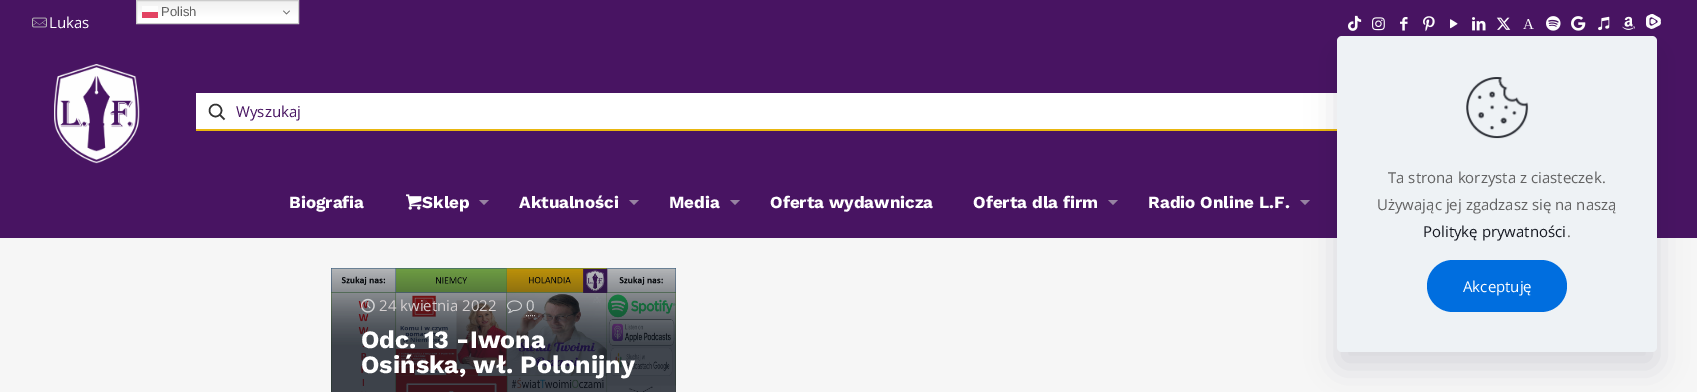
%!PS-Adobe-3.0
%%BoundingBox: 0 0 1697 392
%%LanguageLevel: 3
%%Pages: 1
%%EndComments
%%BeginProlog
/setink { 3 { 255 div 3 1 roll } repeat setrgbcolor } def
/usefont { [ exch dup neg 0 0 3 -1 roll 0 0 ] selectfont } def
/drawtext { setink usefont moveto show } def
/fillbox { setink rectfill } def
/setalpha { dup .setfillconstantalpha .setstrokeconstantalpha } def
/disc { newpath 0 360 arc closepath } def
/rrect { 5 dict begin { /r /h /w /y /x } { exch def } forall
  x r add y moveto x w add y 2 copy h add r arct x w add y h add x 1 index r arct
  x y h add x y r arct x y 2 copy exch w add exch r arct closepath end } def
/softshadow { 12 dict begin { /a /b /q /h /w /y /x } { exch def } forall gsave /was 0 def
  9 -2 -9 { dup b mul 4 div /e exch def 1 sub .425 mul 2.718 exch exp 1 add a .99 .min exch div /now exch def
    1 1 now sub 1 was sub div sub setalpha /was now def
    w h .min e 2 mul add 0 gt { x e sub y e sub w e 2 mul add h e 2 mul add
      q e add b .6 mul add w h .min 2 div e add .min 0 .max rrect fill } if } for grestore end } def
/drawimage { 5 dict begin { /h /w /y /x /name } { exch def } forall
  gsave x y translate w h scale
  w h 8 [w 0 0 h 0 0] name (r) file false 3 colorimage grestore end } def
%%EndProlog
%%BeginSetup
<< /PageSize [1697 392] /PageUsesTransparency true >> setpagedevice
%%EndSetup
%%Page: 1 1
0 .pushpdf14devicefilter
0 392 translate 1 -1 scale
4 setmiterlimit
0 0 1697 392 246 246 246 fillbox
0 0 1697 238 72 20 98 fillbox
gsave 137 1 moveto 298 1 lineto 298 23 lineto 137 23 lineto closepath clip newpath
<< /ShadingType 2 /ColorSpace /DeviceRGB /Coords [218 0 218 24] /Extend [true true] /Function << /FunctionType 3 /Domain [0 1] /Functions [<< /FunctionType 2 /Domain [0 1] /C0 [0.937 0.937 0.937] /C1 [1 1 1] /N 1 >> << /FunctionType 2 /Domain [0 1] /C0 [1 1 1] /C1 [1 1 1] /N 1 >>] /Bounds [0.7] /Encode [0 1 0 1] >> >> shfill grestore
gsave 142 6 moveto 158 6 lineto 158 12 lineto 142 12 lineto closepath clip newpath
<< /ShadingType 2 /ColorSpace /DeviceRGB /Coords [218 0 218 24] /Extend [true true] /Function << /FunctionType 3 /Domain [0 1] /Functions [<< /FunctionType 2 /Domain [0 1] /C0 [0.988 0.988 0.988] /C1 [1 1 1] /N 1 >> << /FunctionType 2 /Domain [0 1] /C0 [1 1 1] /C1 [1 1 1] /N 1 >>] /Bounds [0.7] /Encode [0 1 0 1] >> >> shfill grestore
204 204 204 setink
136.5 0.5 162 23 rectstroke
142 12 16 6 227 67 99 fillbox
(Polish) 161 16 /LiberationSans-Regular 13 98 98 98 drawtext
(assets/img1.rgb) 283 10 7 5 drawimage
(assets/img2.rgb) 32 17 15 11 drawimage
(Lukas) 49 28 /OpenSans-Regular 15 255 255 255 drawtext
(assets/img3.rgb) 1348 15 14 16 drawimage
(assets/img4.rgb) 1372 17 13 14 drawimage
(assets/img5.rgb) 1400 17 8 14 drawimage
(assets/img6.rgb) 1423 16 12 16 drawimage
(assets/img7.rgb) 1450 19 8 10 drawimage
(assets/img8.rgb) 1472 17 14 14 drawimage
(assets/img9.rgb) 1496 17 15 13 drawimage
(A) 1523 29 /LiberationSerif-Regular 15 255 255 255 drawtext
(assets/img10.rgb) 1546 16 15 15 drawimage
(assets/img11.rgb) 1571 16 15 15 drawimage
(assets/img12.rgb) 1598 16 12 15 drawimage
(assets/img13.rgb) 1622 16 13 14 drawimage
(assets/img14.rgb) 1646 14 15 15 drawimage
(assets/img15.rgb) 54 64 86 100 drawimage
196 93 1141 36 255 255 255 fillbox
51 51 51 setink
1.5 setlinewidth
215.5 110.5 6 disc stroke
219.5 114.5 moveto 224.5 119.5 lineto stroke
196 129 1141 2 233 183 15 fillbox
(Wyszukaj) 236 117 /OpenSans-Regular 15 72 20 98 drawtext
(Biografia) 289 208 /WorkSans-Bold 17 255 255 255 drawtext
(assets/img16.rgb) 406 194 16 16 drawimage
(Sklep) 422 208 /WorkSans-Bold 17 255 255 255 drawtext
151 130 162 setink
479 200 moveto 489 200 lineto 484 205 lineto closepath fill
(Aktualności) 519 208 /WorkSans-Bold 17 255 255 255 drawtext
151 130 162 setink
629 200 moveto 639 200 lineto 634 205 lineto closepath fill
(Media) 669 208 /WorkSans-Bold 17 255 255 255 drawtext
151 130 162 setink
730 200 moveto 740 200 lineto 735 205 lineto closepath fill
(Oferta wydawnicza) 770 208 /WorkSans-Bold 17 255 255 255 drawtext
(Oferta dla firm) 973 208 /WorkSans-Bold 17 255 255 255 drawtext
151 130 162 setink
1108 200 moveto 1118 200 lineto 1113 205 lineto closepath fill
(Radio Online L.F.) 1148 208 /WorkSans-Bold 17 255 255 255 drawtext
151 130 162 setink
1300 200 moveto 1310 200 lineto 1305 205 lineto closepath fill
(assets/img17.rgb) 331 268 345 124 drawimage
(assets/img18.rgb) 331 268 345 124 drawimage
(assets/img19.rgb) 361 298 14 15 drawimage
(24 kwietnia 2022) 379 311 /OpenSans-Regular 15 211 206 207 drawtext
(assets/img20.rgb) 507 300 15 14 drawimage
(0) 526 311 /OpenSans-Regular 15 211 212 213 drawtext
0.7 setalpha
255 255 255 setink
1 setlinewidth
[1 1] 0 setdash
526 315.5 moveto 535 315.5 lineto stroke
1 setalpha
(Odc. 13 -Iwona) 361 348 /WorkSans-Bold 25 255 255 255 drawtext
(Osińska, wł. Polonijny) 361 373 /WorkSans-Bold 25 255 255 255 drawtext
1 7 39 setink
1337 51 320 316 5 15 0.13 softshadow
238 242 245 setink
1337 36 320 316 5 rrect fill
(assets/img21.rgb) 1466 77 63 62 drawimage
(Ta strona korzysta z ciasteczek.) 1388 183 /OpenSans-Regular 15 98 98 98 drawtext
(Używając jej zgadzasz się na naszą) 1377 210 /OpenSans-Regular 15 98 98 98 drawtext
(Politykę prywatności) 1423 237 /OpenSans-Regular 15 22 25 34 drawtext
(.) 1567 237 /OpenSans-Regular 15 98 98 98 drawtext
0 110 223 setink
1427 260 140 52 26 rrect fill
(Akceptuję) 1463 292 /OpenSans-Regular 15 255 255 255 drawtext
.poppdf14devicefilter showpage
%%EOF
